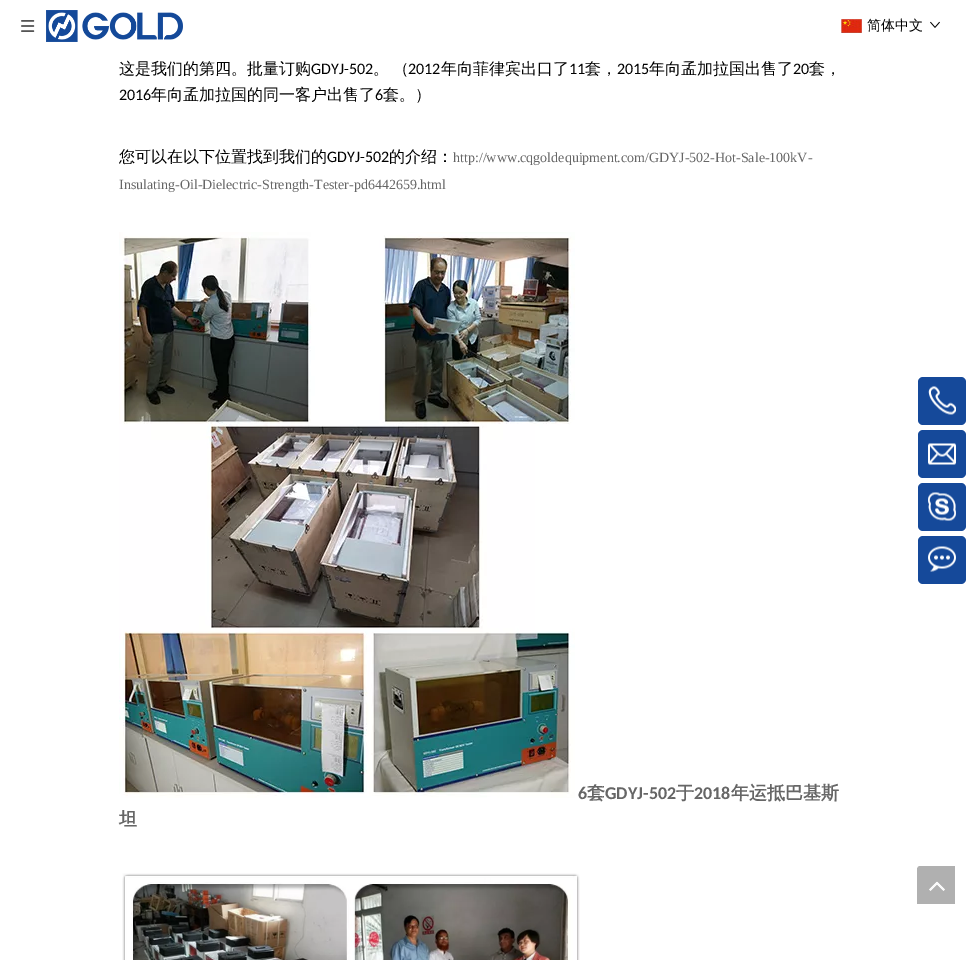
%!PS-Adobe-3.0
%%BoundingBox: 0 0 967 960
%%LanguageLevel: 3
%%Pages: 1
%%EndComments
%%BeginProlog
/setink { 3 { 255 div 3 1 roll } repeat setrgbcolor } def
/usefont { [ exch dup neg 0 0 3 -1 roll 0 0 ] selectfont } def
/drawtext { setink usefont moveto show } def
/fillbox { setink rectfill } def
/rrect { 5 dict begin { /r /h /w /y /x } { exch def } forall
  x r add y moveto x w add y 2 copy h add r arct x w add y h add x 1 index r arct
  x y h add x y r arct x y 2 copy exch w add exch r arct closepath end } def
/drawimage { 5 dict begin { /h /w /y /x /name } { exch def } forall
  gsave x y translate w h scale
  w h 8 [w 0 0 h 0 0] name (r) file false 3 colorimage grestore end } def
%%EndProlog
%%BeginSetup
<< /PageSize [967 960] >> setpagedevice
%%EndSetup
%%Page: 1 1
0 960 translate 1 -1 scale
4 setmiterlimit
0 0 967 960 255 255 255 fillbox
(assets/img1.rgb) 21 20 14 12 drawimage
(assets/img2.rgb) 46 10 137 32 drawimage
(assets/img3.rgb) 841 19 21 14 drawimage
(简体中文) 867 30 /WenQuanYiZenHei-Medium 14 0 0 0 drawtext
(assets/img4.rgb) 930 21 10 7 drawimage
(这是我们的第四。批量订购) 119 74 /WenQuanYiZenHei-Medium 16 0 0 0 drawtext
(GDYJ-502) 311 74 /Carlito-Regular 16 0 0 0 drawtext
/WenQuanYiZenHei-Medium 16 usefont
373 74 moveto -1 0 32 (。 （) widthshow
(2012) 408 74 /Carlito-Regular 16 0 0 0 drawtext
(年向菲律宾出口了) 441 74 /WenQuanYiZenHei-Medium 16 0 0 0 drawtext
(11) 569 74 /Carlito-Regular 16 0 0 0 drawtext
(套，) 585 74 /WenQuanYiZenHei-Medium 16 0 0 0 drawtext
(2015) 617 74 /Carlito-Regular 16 0 0 0 drawtext
(年向孟加拉国出售了) 649 74 /WenQuanYiZenHei-Medium 16 0 0 0 drawtext
(20) 793 74 /Carlito-Regular 16 0 0 0 drawtext
(套，) 809 74 /WenQuanYiZenHei-Medium 16 0 0 0 drawtext
(2016) 119 100 /Carlito-Regular 16 0 0 0 drawtext
(年向孟加拉国的同一客户出售了) 151 100 /WenQuanYiZenHei-Medium 16 0 0 0 drawtext
(6) 375 100 /Carlito-Regular 16 0 0 0 drawtext
(套。）) 383 100 /WenQuanYiZenHei-Medium 16 0 0 0 drawtext
(您可以在以下位置找到我们的) 119 162 /WenQuanYiZenHei-Medium 16 0 0 0 drawtext
(GDYJ-502) 327 162 /Carlito-Regular 16 0 0 0 drawtext
(的介绍：) 389 162 /WenQuanYiZenHei-Medium 16 0 0 0 drawtext
(http://www.cqgoldequipment.com/GDYJ-502-Hot-Sale-100kV-) 453 162 /LiberationSerif-Regular 14 102 102 102 drawtext
(Insulating-Oil-Dielectric-Strength-Tester-pd6442659.html) 119 189 /LiberationSerif-Regular 14 102 102 102 drawtext
(assets/img5.rgb) 119 232 456 566 drawimage
(6) 578 799 /Carlito-Bold 18 102 102 102 drawtext
(套) 587 799 /WenQuanYiZenHei-Bold 18 102 102 102 drawtext
(GDYJ-502) 605 799 /Carlito-Bold 18 102 102 102 drawtext
(于) 676 799 /WenQuanYiZenHei-Bold 18 102 102 102 drawtext
(2018) 694 799 /Carlito-Bold 18 102 102 102 drawtext
(年运抵巴基斯) 731 799 /WenQuanYiZenHei-Bold 18 102 102 102 drawtext
(坦) 119 825 /WenQuanYiZenHei-Bold 18 102 102 102 drawtext
(assets/img6.rgb) 122 873 458 87 drawimage
21 73 154 setink
918 377 48 48 5 rrect fill
(assets/img7.rgb) 928 386 28 29 drawimage
918 430 48 48 5 rrect fill
(assets/img8.rgb) 928 443 28 22 drawimage
918 483 48 48 5 rrect fill
(assets/img9.rgb) 928 492 28 29 drawimage
918 536 48 48 5 rrect fill
(assets/img10.rgb) 928 546 28 26 drawimage
(assets/img11.rgb) 917 866 38 38 drawimage
showpage
%%EOF
